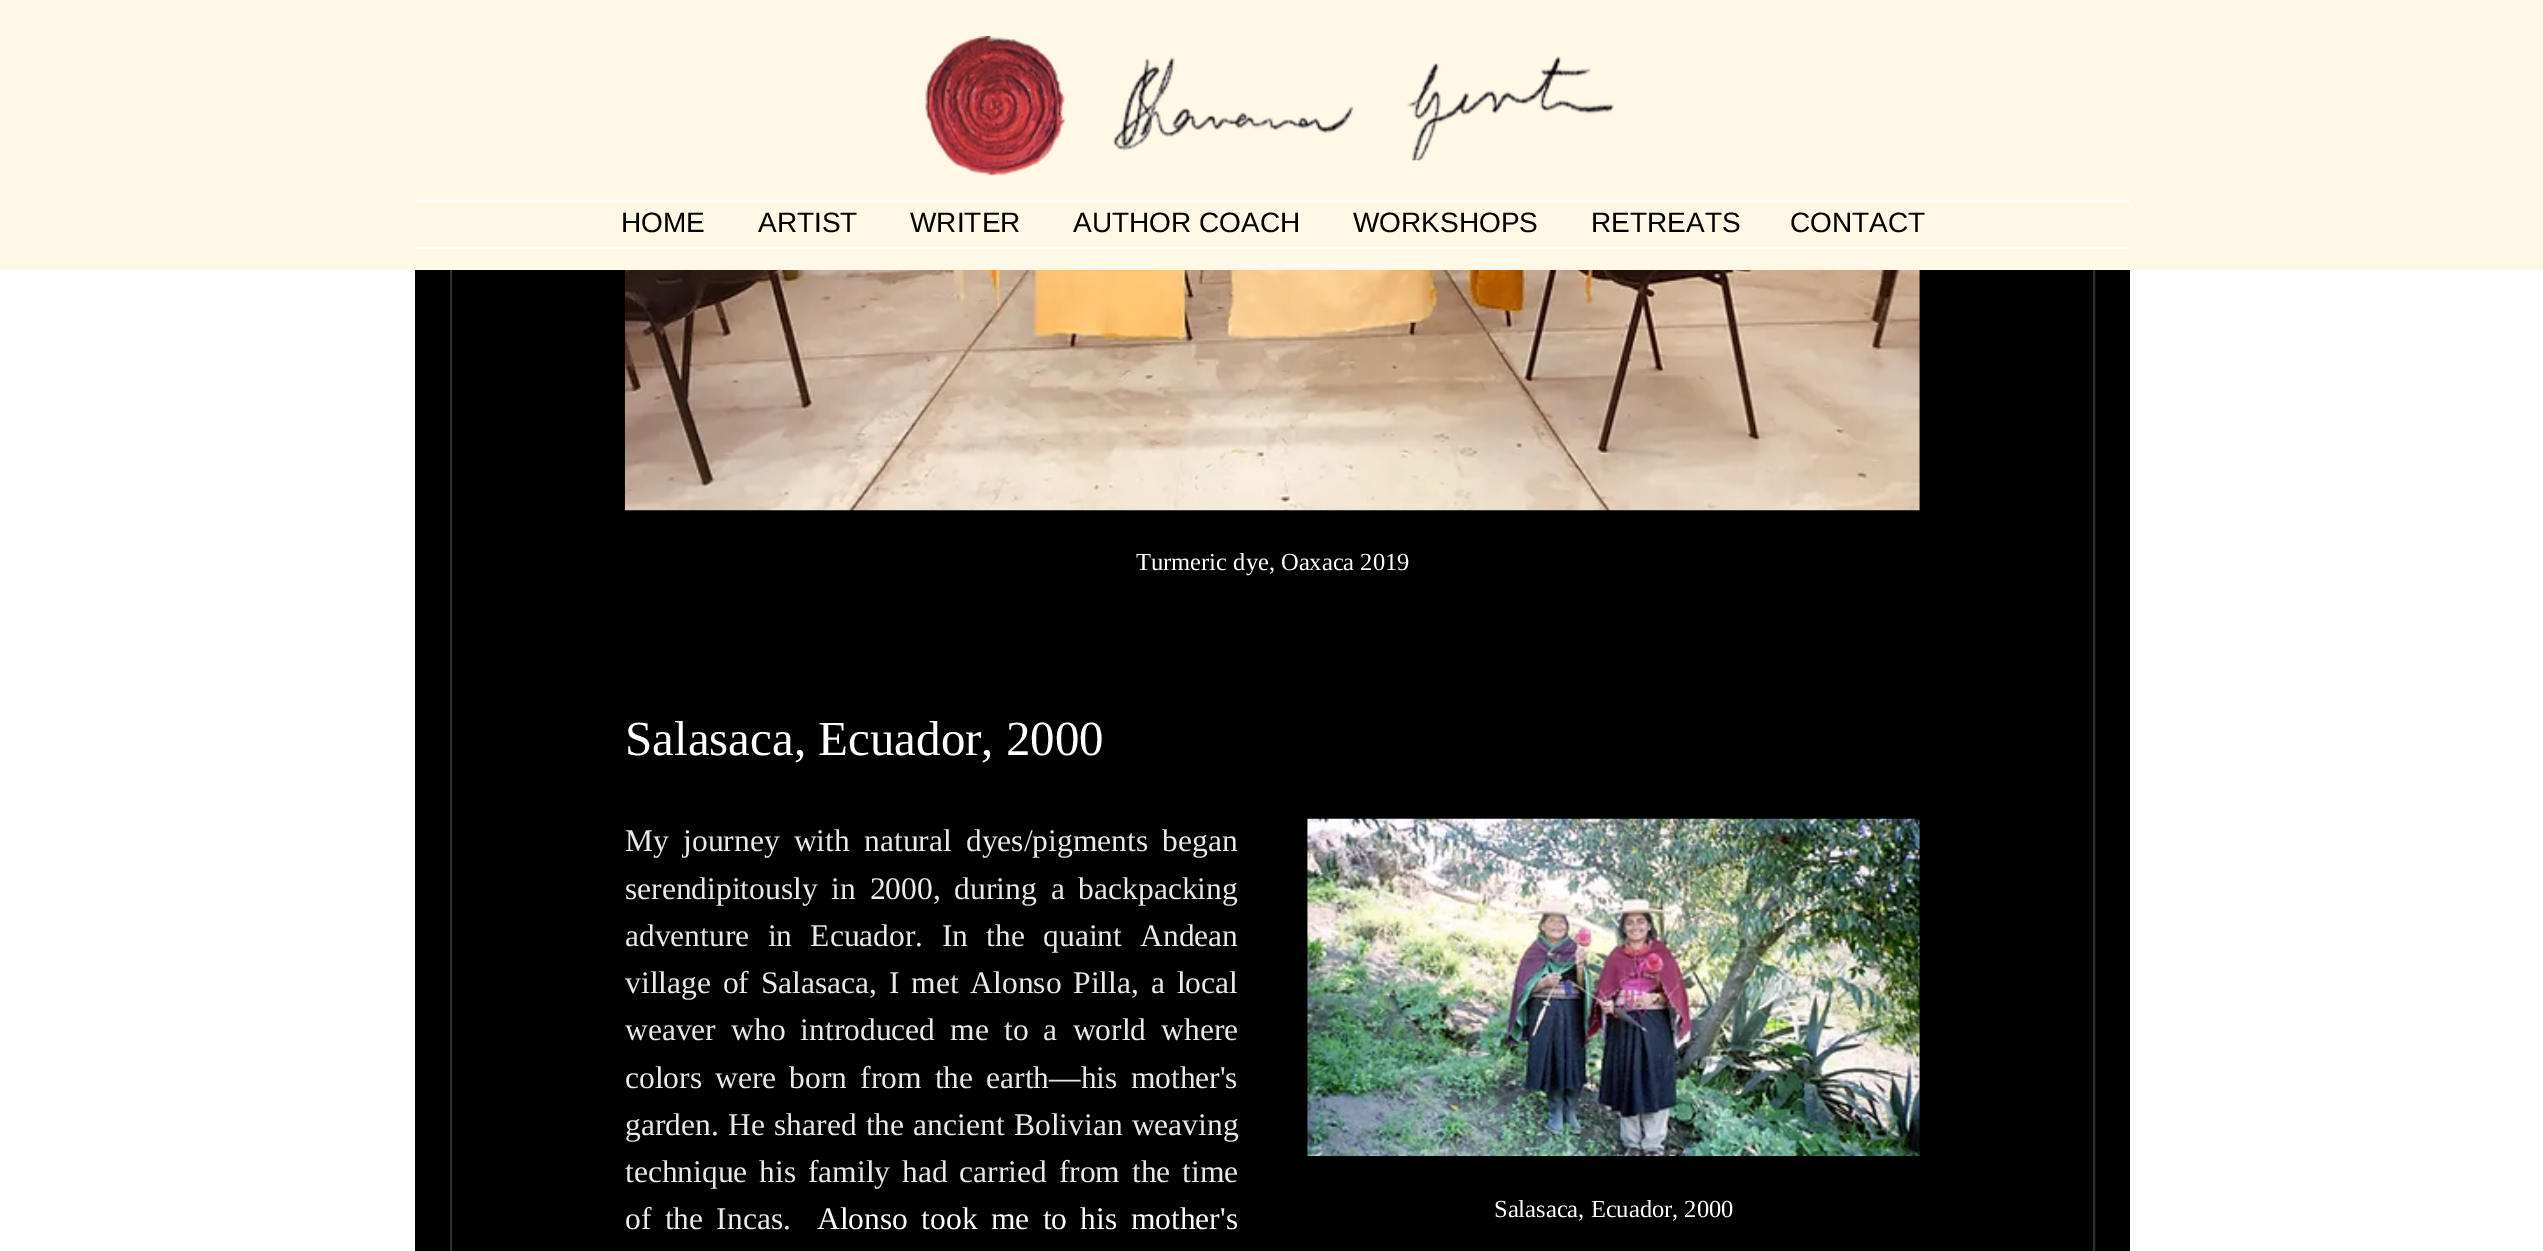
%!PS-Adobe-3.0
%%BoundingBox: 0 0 2543 1251
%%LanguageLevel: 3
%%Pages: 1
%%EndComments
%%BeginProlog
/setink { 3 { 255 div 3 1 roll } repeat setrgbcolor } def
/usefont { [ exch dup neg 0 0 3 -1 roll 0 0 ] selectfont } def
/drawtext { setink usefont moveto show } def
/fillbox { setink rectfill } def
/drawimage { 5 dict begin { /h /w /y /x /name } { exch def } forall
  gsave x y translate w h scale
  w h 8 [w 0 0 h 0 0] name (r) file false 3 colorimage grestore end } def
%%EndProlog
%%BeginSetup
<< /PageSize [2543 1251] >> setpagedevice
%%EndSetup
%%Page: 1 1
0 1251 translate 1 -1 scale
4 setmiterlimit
0 0 2543 1251 255 255 255 fillbox
415 270 1715 981 0 0 0 fillbox
48 48 48 setink
2 setlinewidth
451 -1 1643 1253 rectstroke
0 0 2543 270 255 248 231 fillbox
(assets/img1.rgb) 925 36 141 140 drawimage
(assets/img2.rgb) 1112 56 502 105 drawimage
415 200 1715 2 255 255 255 fillbox
415 247 1715 2 255 255 255 fillbox
(HOME) 621 232 /LiberationSans-Regular 28 0 0 0 drawtext
(ARTIST) 758 232 /LiberationSans-Regular 28 0 0 0 drawtext
(WRITER) 910 232 /LiberationSans-Regular 28 0 0 0 drawtext
(AUTHOR COACH) 1073 232 /LiberationSans-Regular 28 0 0 0 drawtext
(WORKSHOPS) 1353 232 /LiberationSans-Regular 28 0 0 0 drawtext
(RETREATS) 1591 232 /LiberationSans-Regular 28 0 0 0 drawtext
(CONTACT) 1790 232 /LiberationSans-Regular 28 0 0 0 drawtext
(assets/img3.rgb) 624 270 1296 241 drawimage
(Turmeric dye, Oaxaca 2019) 1136 570 /LiberationSerif-Regular 24.5 255 255 255 drawtext
(Salasaca, Ecuador, 2000) 625 755 /LiberationSerif-Regular 49 255 255 255 drawtext
/LiberationSerif-Regular 31.5 usefont
231 233 234 setink
625 851 moveto 6.5 0 32 (My journey with natural dyes/pigments began) widthshow
625 899 moveto 6 0 32 (serendipitously in 2000, during a backpacking) widthshow
625 946 moveto 10.5 0 32 (adventure in Ecuador. In the quaint Andean) widthshow
625 993 moveto 4 0 32 (village of Salasaca, I met Alonso Pilla, a local) widthshow
625 1040 moveto 7.25 0 32 (weaver who introduced me to a world where) widthshow
625 1088 moveto 5.25 0 32 (colors were born from the earth—his mother's) widthshow
625 1135 moveto 1.5 0 32 (garden. He shared the ancient Bolivian weaving) widthshow
625 1182 moveto 4 0 32 (technique his family had carried from the time) widthshow
625 1229 moveto 5.5 0 32 (of the Incas.) widthshow
255 255 255 setink
817 1229 moveto 5.5 0 32 (Alonso took me to his mother's) widthshow
(assets/img4.rgb) 1307 818 613 339 drawimage
(Salasaca, Ecuador, 2000) 1494 1217 /LiberationSerif-Regular 24.5 255 255 255 drawtext
showpage
%%EOF
